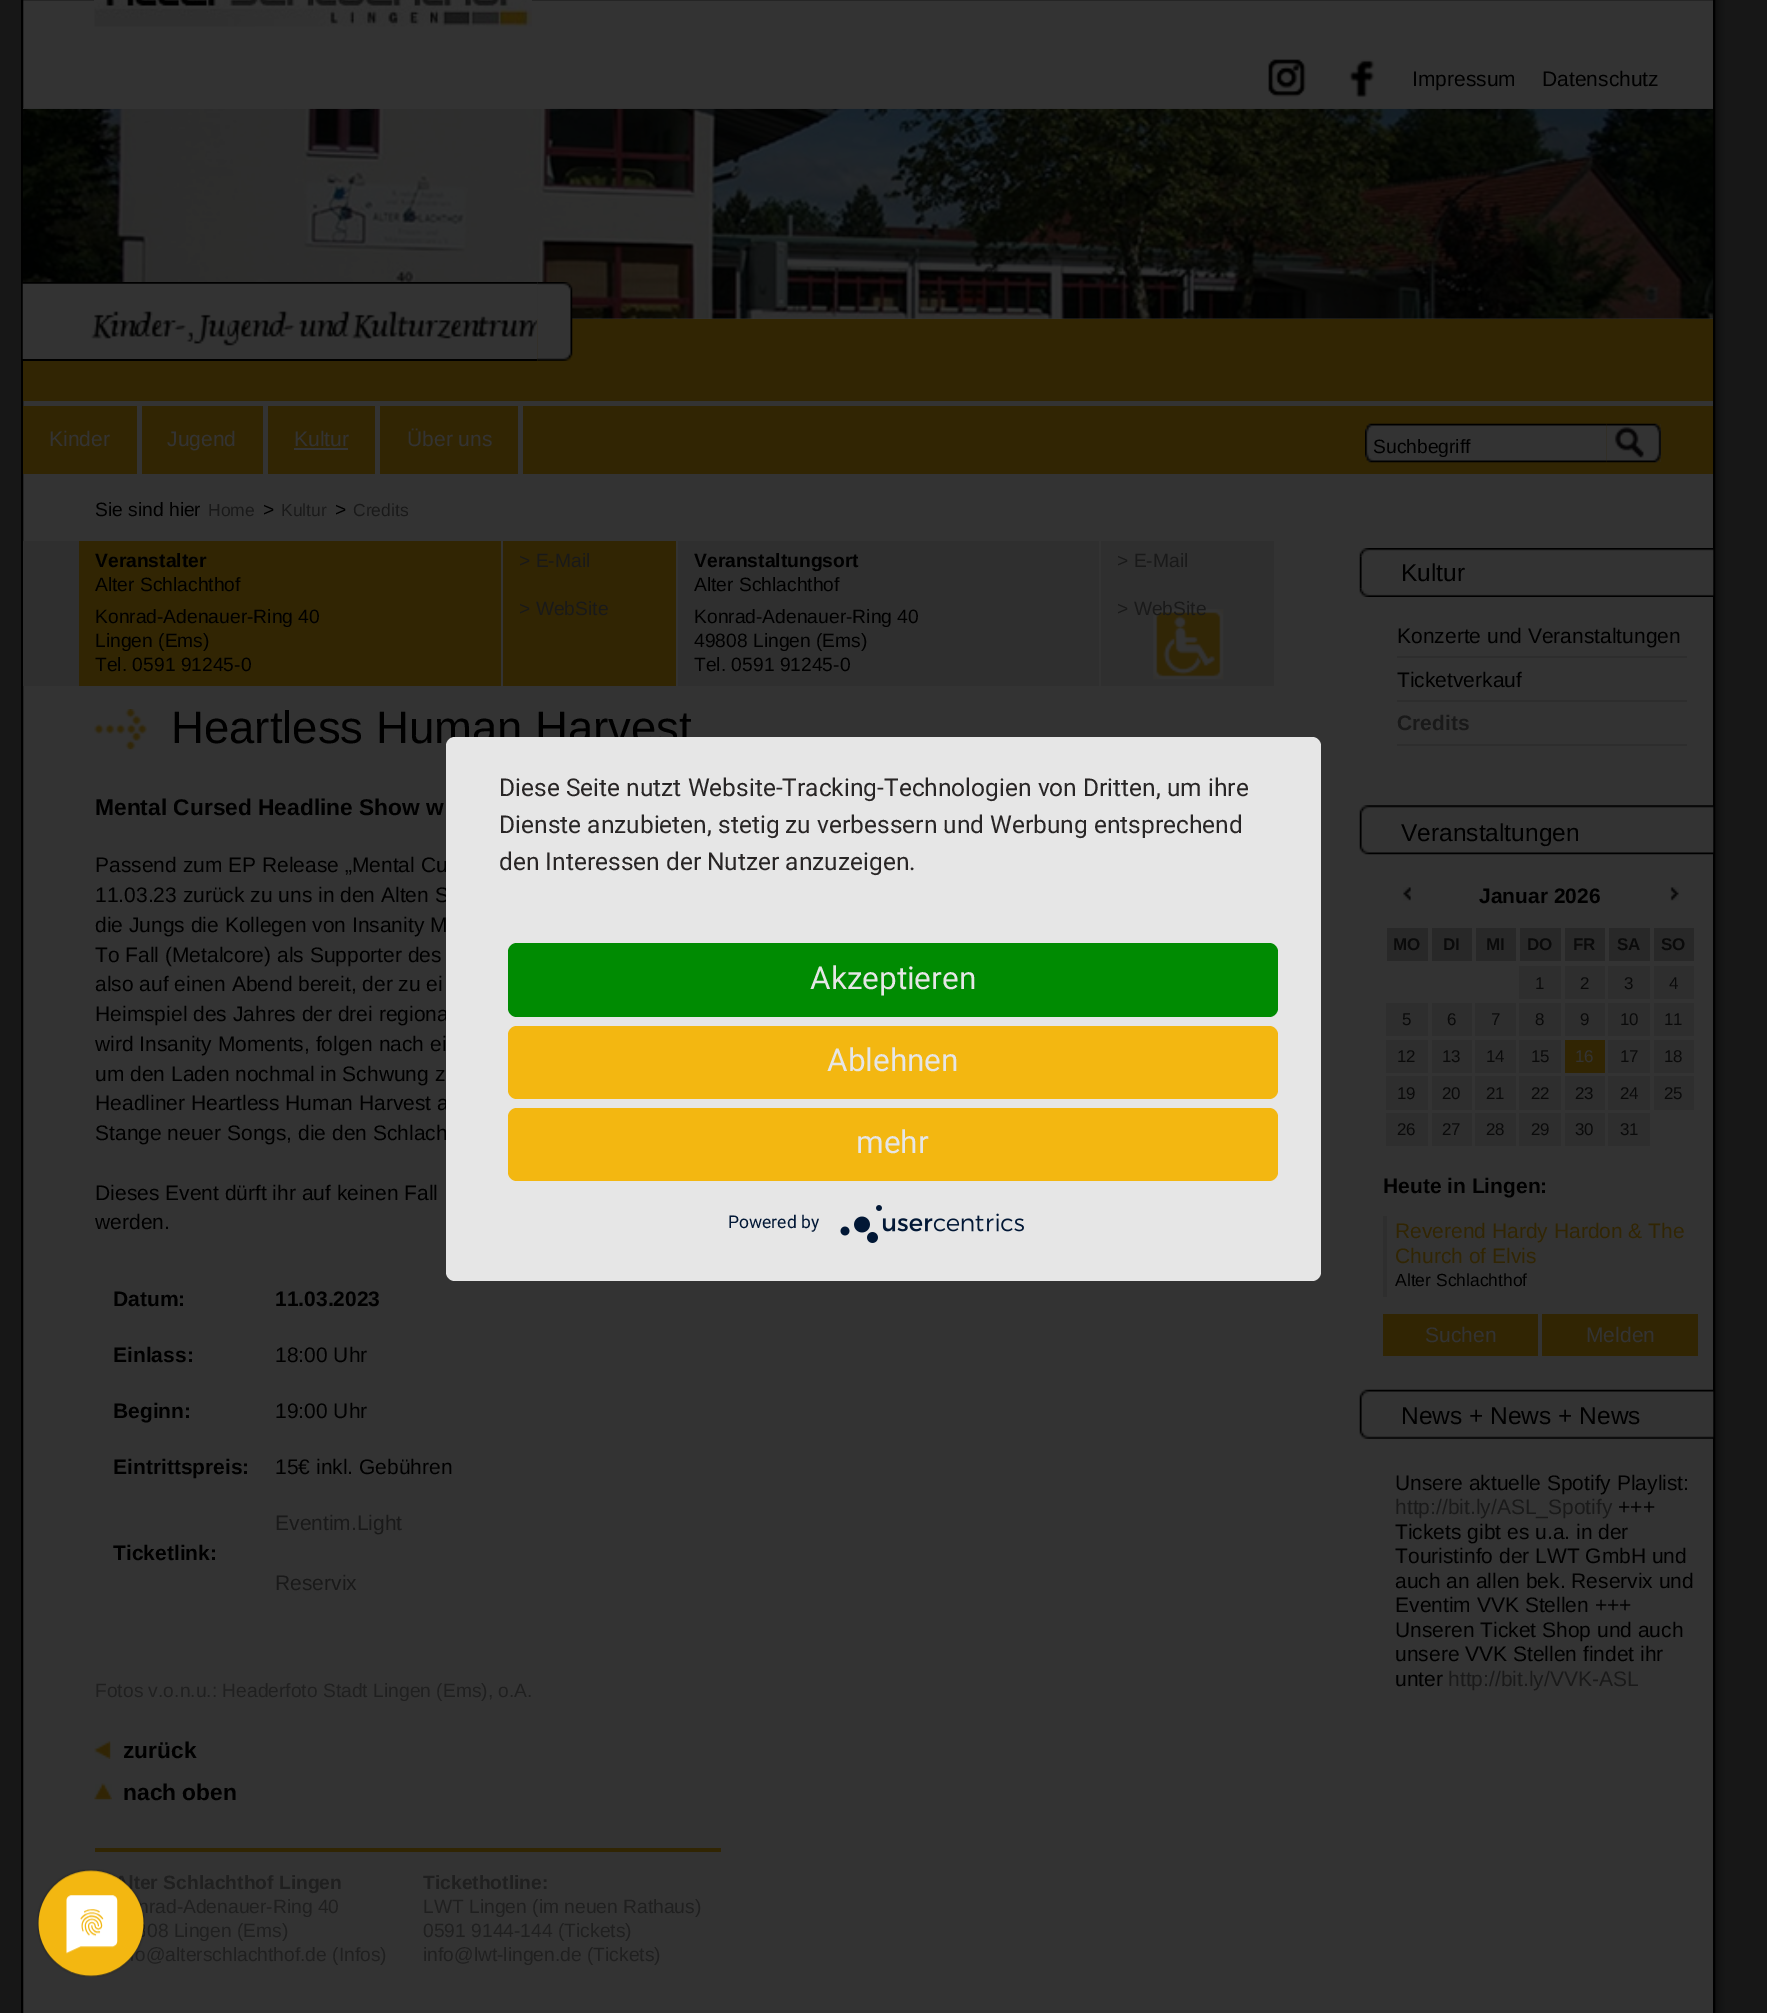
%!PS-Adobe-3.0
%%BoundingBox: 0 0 1767 2013
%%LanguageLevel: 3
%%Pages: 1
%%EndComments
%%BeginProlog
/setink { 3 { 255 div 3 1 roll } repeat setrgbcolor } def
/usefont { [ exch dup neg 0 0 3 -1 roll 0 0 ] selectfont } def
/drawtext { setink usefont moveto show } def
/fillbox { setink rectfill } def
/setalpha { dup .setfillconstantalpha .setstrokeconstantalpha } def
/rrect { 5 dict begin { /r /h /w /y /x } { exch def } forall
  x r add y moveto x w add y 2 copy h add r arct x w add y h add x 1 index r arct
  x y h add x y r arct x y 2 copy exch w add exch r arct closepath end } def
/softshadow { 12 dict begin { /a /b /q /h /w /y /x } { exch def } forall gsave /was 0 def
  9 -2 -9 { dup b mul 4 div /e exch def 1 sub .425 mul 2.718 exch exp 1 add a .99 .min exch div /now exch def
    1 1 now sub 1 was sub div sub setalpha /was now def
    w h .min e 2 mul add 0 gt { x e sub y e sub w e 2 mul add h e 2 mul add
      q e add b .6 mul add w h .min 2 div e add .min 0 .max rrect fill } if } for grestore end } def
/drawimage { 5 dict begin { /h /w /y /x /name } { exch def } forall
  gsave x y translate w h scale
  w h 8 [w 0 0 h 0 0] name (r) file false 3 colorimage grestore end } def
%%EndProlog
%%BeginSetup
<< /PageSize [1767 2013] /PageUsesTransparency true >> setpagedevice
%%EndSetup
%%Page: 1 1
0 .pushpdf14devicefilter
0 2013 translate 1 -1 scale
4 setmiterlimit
0 0 1767 2013 23 23 23 fillbox
(assets/img1.rgb) 1715 0 10 2013 drawimage
51 51 51 setink
22 -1 moveto 1714 -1 lineto 1714 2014 lineto 22 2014 lineto closepath gsave fill grestore
0 0 0 setink
2 setlinewidth
stroke
(assets/img2.rgb) 94 0 438 27 drawimage
(assets/img3.rgb) 1268 59 38 38 drawimage
(assets/img4.rgb) 1349 59 26 39 drawimage
(Impressum) 1412 86 /LiberationSans-Regular 21 0 0 0 drawtext
(Datenschutz) 1542 86 /LiberationSans-Regular 21 0 0 0 drawtext
(assets/img5.rgb) 22 108 1692 211 drawimage
23 282 514 2 0 0 0 fillbox
23 319 1690 82 49 37 3 fillbox
(assets/img6.rgb) 22 283 516 76 drawimage
23 359 514 2 0 0 0 fillbox
(assets/img7.rgb) 537 282 36 79 drawimage
23 406 1690 68 49 37 3 fillbox
137 406 5 68 51 51 51 fillbox
(Kinder) 49 446 /LiberationSans-Regular 21 51 51 51 drawtext
263 406 5 68 51 51 51 fillbox
(Jugend) 167 446 /LiberationSans-Regular 21 51 51 51 drawtext
375 406 5 68 51 51 51 fillbox
(Kultur) 294 446 /LiberationSans-Regular 21 51 51 51 drawtext
294 448 54 2 51 51 51 fillbox
518 406 5 68 51 51 51 fillbox
(Über uns) 407 446 /LiberationSans-Regular 21 51 51 51 drawtext
(assets/img8.rgb) 1365 423 242 40 drawimage
(Suchbegriff) 1373 453 /LiberationSans-Regular 19.25 0 0 0 drawtext
(assets/img9.rgb) 1606 423 55 40 drawimage
(Sie sind hier) 95 516 /LiberationSans-Regular 19.25 0 0 0 drawtext
(Home) 208 516 /LiberationSans-Regular 17.5 25 25 25 drawtext
(>) 263 516 /LiberationSans-Regular 19.25 0 0 0 drawtext
(Kultur) 281 516 /LiberationSans-Regular 17.5 25 25 25 drawtext
(>) 335 516 /LiberationSans-Regular 19.25 0 0 0 drawtext
(Credits) 353 516 /LiberationSans-Regular 17.5 25 25 25 drawtext
23 541 1251 145 47 47 47 fillbox
79 541 422 145 49 37 3 fillbox
(Veranstalter) 95 567 /LiberationSans-Bold 19.25 0 0 0 drawtext
(Alter Schlachthof) 95 591 /LiberationSans-Regular 19.25 0 0 0 drawtext
(Konrad-Adenauer-Ring 40) 95 623 /LiberationSans-Regular 19.25 0 0 0 drawtext
(Lingen \(Ems\)) 95 647 /LiberationSans-Regular 19.25 0 0 0 drawtext
(Tel. 0591 91245-0) 95 671 /LiberationSans-Regular 19.25 0 0 0 drawtext
503 541 173 145 49 37 3 fillbox
676 541 2 145 51 51 51 fillbox
501 541 2 145 51 51 51 fillbox
(> E-Mail) 519 567 /LiberationSans-Regular 19.25 25 25 25 drawtext
(> WebSite) 519 615 /LiberationSans-Regular 19.25 25 25 25 drawtext
(Veranstaltungsort) 694 567 /LiberationSans-Bold 19.25 0 0 0 drawtext
(Alter Schlachthof) 694 591 /LiberationSans-Regular 19.25 0 0 0 drawtext
(Konrad-Adenauer-Ring 40) 694 623 /LiberationSans-Regular 19.25 0 0 0 drawtext
(49808 Lingen \(Ems\)) 694 647 /LiberationSans-Regular 19.25 0 0 0 drawtext
(Tel. 0591 91245-0) 694 671 /LiberationSans-Regular 19.25 0 0 0 drawtext
(assets/img10.rgb) 1153 609 71 71 drawimage
1099 541 2 145 51 51 51 fillbox
(> E-Mail) 1117 567 /LiberationSans-Regular 19.25 25 25 25 drawtext
(> WebSite) 1117 615 /LiberationSans-Regular 19.25 25 25 25 drawtext
(assets/img11.rgb) 94 709 53 41 drawimage
(Heartless Human Harvest) 171 743 /LiberationSans-Regular 45.5 0 0 0 drawtext
(Mental Cursed Headline Show w) 95 815 /LiberationSans-Bold 22.75 0 0 0 drawtext
(Passend zum EP Release „Mental Cu) 95 872 /LiberationSans-Regular 21 0 0 0 drawtext
(11.03.23 zurück zu uns in den Alten S) 95 902 /LiberationSans-Regular 21 0 0 0 drawtext
(die Jungs die Kollegen von Insanity M) 95 932 /LiberationSans-Regular 21 0 0 0 drawtext
(To Fall \(Metalcore\) als Supporter des) 95 962 /LiberationSans-Regular 21 0 0 0 drawtext
(also auf einen Abend bereit, der zu ei) 95 991 /LiberationSans-Regular 21 0 0 0 drawtext
(Heimspiel des Jahres der drei regiona) 95 1021 /LiberationSans-Regular 21 0 0 0 drawtext
(wird Insanity Moments, folgen nach ei) 95 1051 /LiberationSans-Regular 21 0 0 0 drawtext
(um den Laden nochmal in Schwung z) 95 1081 /LiberationSans-Regular 21 0 0 0 drawtext
(Headliner Heartless Human Harvest a) 95 1110 /LiberationSans-Regular 21 0 0 0 drawtext
(Stange neuer Songs, die den Schlach) 95 1140 /LiberationSans-Regular 21 0 0 0 drawtext
(Dieses Event dürft ihr auf keinen Fall) 95 1200 /LiberationSans-Regular 21 0 0 0 drawtext
(werden.) 95 1229 /LiberationSans-Regular 21 0 0 0 drawtext
(Datum:) 113 1306 /LiberationSans-Bold 21 0 0 0 drawtext
(11.03.2023) 275 1306 /LiberationSans-Bold 21 0 0 0 drawtext
(Einlass:) 113 1362 /LiberationSans-Bold 21 0 0 0 drawtext
(18:00 Uhr) 275 1362 /LiberationSans-Regular 21 0 0 0 drawtext
(Beginn:) 113 1418 /LiberationSans-Bold 21 0 0 0 drawtext
(19:00 Uhr) 275 1418 /LiberationSans-Regular 21 0 0 0 drawtext
(Eintrittspreis:) 113 1474 /LiberationSans-Bold 21 0 0 0 drawtext
(15€ inkl. Gebühren) 275 1474 /LiberationSans-Regular 21 0 0 0 drawtext
(Ticketlink:) 113 1560 /LiberationSans-Bold 21 0 0 0 drawtext
(Eventim.Light) 275 1530 /LiberationSans-Regular 21 25 25 25 drawtext
(Reservix) 275 1590 /LiberationSans-Regular 21 25 25 25 drawtext
(Fotos v.o.n.u.: Headerfoto Stadt Lingen \(Ems\), o.A.) 95 1697 /LiberationSans-Regular 19.25 31 31 31 drawtext
(assets/img12.rgb) 94 1741 17 18 drawimage
(zurück) 123 1758 /LiberationSans-Bold 22.75 0 0 0 drawtext
(assets/img13.rgb) 94 1783 18 17 drawimage
(nach oben) 123 1800 /LiberationSans-Bold 22.75 0 0 0 drawtext
95 1848 626 4 49 37 3 fillbox
(lter Schlachthof Lingen) 128 1889 /LiberationSans-Bold 19.25 31 31 31 drawtext
(nrad-Adenauer-Ring 40) 138 1913 /LiberationSans-Regular 19.25 31 31 31 drawtext
(08 Lingen \(Ems\)) 147 1937 /LiberationSans-Regular 19.25 31 31 31 drawtext
(o@alterschlachthof.de \(Infos\)) 135 1961 /LiberationSans-Regular 19.25 31 31 31 drawtext
(Tickethotline:) 423 1889 /LiberationSans-Bold 19.25 31 31 31 drawtext
(LWT Lingen \(im neuen Rathaus\)) 423 1913 /LiberationSans-Regular 19.25 31 31 31 drawtext
(0591 9144-144 \(Tickets\)) 423 1937 /LiberationSans-Regular 19.25 31 31 31 drawtext
(info@lwt-lingen.de \(Tickets\)) 423 1961 /LiberationSans-Regular 19.25 31 31 31 drawtext
(assets/img14.rgb) 1359 548 355 9 drawimage
(assets/img15.rgb) 1359 556 355 33 drawimage
(Kultur) 1401 581 /LiberationSans-Regular 24.5 0 0 0 drawtext
(assets/img16.rgb) 1359 588 355 9 drawimage
1397 656 290 2 45 45 45 fillbox
(Konzerte und Veranstaltungen) 1397 643 /LiberationSans-Regular 21 0 0 0 drawtext
1397 700 290 2 45 45 45 fillbox
(Ticketverkauf) 1397 687 /LiberationSans-Regular 21 0 0 0 drawtext
1397 744 290 2 45 45 45 fillbox
(Credits) 1397 730 /LiberationSans-Bold 21 25 25 25 drawtext
(assets/img17.rgb) 1359 805 355 50 drawimage
(Veranstaltungen) 1401 841 /LiberationSans-Regular 24.5 0 0 0 drawtext
(assets/img18.rgb) 1403 887 8 14 drawimage
(Januar 2026) 1479 903 /LiberationSans-Bold 21 0 0 0 drawtext
(assets/img19.rgb) 1670 887 9 14 drawimage
1387 928 41 33 40 40 40 fillbox
(MO) 1393 950 /LiberationSans-Bold 17 10 10 10 drawtext
1432 928 40 33 40 40 40 fillbox
(DI) 1443 950 /LiberationSans-Bold 17 10 10 10 drawtext
1476 928 40 33 40 40 40 fillbox
(MI) 1486 950 /LiberationSans-Bold 17 10 10 10 drawtext
1520 928 41 33 40 40 40 fillbox
(DO) 1527 950 /LiberationSans-Bold 17 10 10 10 drawtext
1565 928 40 33 40 40 40 fillbox
(FR) 1573 950 /LiberationSans-Bold 17 10 10 10 drawtext
1609 928 41 33 40 40 40 fillbox
(SA) 1617 950 /LiberationSans-Bold 17 10 10 10 drawtext
1654 928 40 33 40 40 40 fillbox
(SO) 1661 950 /LiberationSans-Bold 17 10 10 10 drawtext
1519 966 42 33 46 46 46 fillbox
(1) 1535 989 /LiberationSans-Regular 17 10 10 10 drawtext
1565 966 40 33 46 46 46 fillbox
(2) 1580 989 /LiberationSans-Regular 17 10 10 10 drawtext
1608 966 42 33 46 46 46 fillbox
(3) 1624 989 /LiberationSans-Regular 17 10 10 10 drawtext
1654 966 40 33 46 46 46 fillbox
(4) 1669 989 /LiberationSans-Regular 17 10 10 10 drawtext
1386 1003 42 33 46 46 46 fillbox
(5) 1402 1025 /LiberationSans-Regular 17 10 10 10 drawtext
1432 1003 40 33 46 46 46 fillbox
(6) 1447 1025 /LiberationSans-Regular 17 10 10 10 drawtext
1475 1003 41 33 46 46 46 fillbox
(7) 1491 1025 /LiberationSans-Regular 17 10 10 10 drawtext
1519 1003 42 33 46 46 46 fillbox
(8) 1535 1025 /LiberationSans-Regular 17 10 10 10 drawtext
1565 1003 40 33 46 46 46 fillbox
(9) 1580 1025 /LiberationSans-Regular 17 10 10 10 drawtext
1608 1003 42 33 46 46 46 fillbox
(10) 1620 1025 /LiberationSans-Regular 17 10 10 10 drawtext
1654 1003 40 33 46 46 46 fillbox
(11) 1664 1025 /LiberationSans-Regular 17 10 10 10 drawtext
1386 1040 42 33 46 46 46 fillbox
(12) 1397 1062 /LiberationSans-Regular 17 10 10 10 drawtext
1432 1040 40 33 46 46 46 fillbox
(13) 1442 1062 /LiberationSans-Regular 17 10 10 10 drawtext
1475 1040 41 33 46 46 46 fillbox
(14) 1486 1062 /LiberationSans-Regular 17 10 10 10 drawtext
1519 1040 42 33 46 46 46 fillbox
(15) 1531 1062 /LiberationSans-Regular 17 10 10 10 drawtext
1565 1040 40 33 49 37 3 fillbox
(16) 1575 1062 /LiberationSans-Regular 17 51 51 51 drawtext
1608 1040 42 33 46 46 46 fillbox
(17) 1620 1062 /LiberationSans-Regular 17 10 10 10 drawtext
1654 1040 40 33 46 46 46 fillbox
(18) 1664 1062 /LiberationSans-Regular 17 10 10 10 drawtext
1386 1076 42 34 46 46 46 fillbox
(19) 1397 1099 /LiberationSans-Regular 17 10 10 10 drawtext
1432 1076 40 34 46 46 46 fillbox
(20) 1442 1099 /LiberationSans-Regular 17 10 10 10 drawtext
1475 1076 41 34 46 46 46 fillbox
(21) 1486 1099 /LiberationSans-Regular 17 10 10 10 drawtext
1519 1076 42 34 46 46 46 fillbox
(22) 1531 1099 /LiberationSans-Regular 17 10 10 10 drawtext
1565 1076 40 34 46 46 46 fillbox
(23) 1575 1099 /LiberationSans-Regular 17 10 10 10 drawtext
1608 1076 42 34 46 46 46 fillbox
(24) 1620 1099 /LiberationSans-Regular 17 10 10 10 drawtext
1654 1076 40 34 46 46 46 fillbox
(25) 1664 1099 /LiberationSans-Regular 17 10 10 10 drawtext
1386 1113 42 33 46 46 46 fillbox
(26) 1397 1135 /LiberationSans-Regular 17 10 10 10 drawtext
1432 1113 40 33 46 46 46 fillbox
(27) 1442 1135 /LiberationSans-Regular 17 10 10 10 drawtext
1475 1113 41 33 46 46 46 fillbox
(28) 1486 1135 /LiberationSans-Regular 17 10 10 10 drawtext
1519 1113 42 33 46 46 46 fillbox
(29) 1531 1135 /LiberationSans-Regular 17 10 10 10 drawtext
1565 1113 40 33 46 46 46 fillbox
(30) 1575 1135 /LiberationSans-Regular 17 10 10 10 drawtext
1608 1113 42 33 46 46 46 fillbox
(31) 1620 1135 /LiberationSans-Regular 17 10 10 10 drawtext
(Heute in Lingen:) 1383 1193 /LiberationSans-Bold 21 0 0 0 drawtext
1383 1216 4 81 46 46 46 fillbox
(Reverend Hardy Hardon & The) 1395 1238 /LiberationSans-Regular 21 49 37 3 drawtext
(Church of Elvis) 1395 1263 /LiberationSans-Regular 21 49 37 3 drawtext
(Alter Schlachthof) 1395 1286 /LiberationSans-Regular 17.5 0 0 0 drawtext
1383 1314 155 42 49 37 3 fillbox
(Suchen) 1425 1342 /LiberationSans-Regular 21 51 51 51 drawtext
1542 1314 156 42 49 37 3 fillbox
(Melden) 1586 1342 /LiberationSans-Regular 21 51 51 51 drawtext
(assets/img20.rgb) 1359 1389 355 50 drawimage
(News + News + News) 1401 1424 /LiberationSans-Regular 24.5 0 0 0 drawtext
(Unsere aktuelle Spotify Playlist:) 1395 1490 /LiberationSans-Regular 21 0 0 0 drawtext
(http://bit.ly/ASL_Spotify) 1395 1514 /LiberationSans-Regular 21 25 25 25 drawtext
(+++) 1618 1514 /LiberationSans-Regular 21 0 0 0 drawtext
(Tickets gibt es u.a. in der) 1395 1539 /LiberationSans-Regular 21 0 0 0 drawtext
(Touristinfo der LWT GmbH und) 1395 1563 /LiberationSans-Regular 21 0 0 0 drawtext
(auch an allen bek. Reservix und) 1395 1588 /LiberationSans-Regular 21 0 0 0 drawtext
(Eventim VVK Stellen +++) 1395 1612 /LiberationSans-Regular 21 0 0 0 drawtext
(Unseren Ticket Shop und auch) 1395 1637 /LiberationSans-Regular 21 0 0 0 drawtext
(unsere VVK Stellen findet ihr) 1395 1661 /LiberationSans-Regular 21 0 0 0 drawtext
(unter) 1395 1686 /LiberationSans-Regular 21 0 0 0 drawtext
(http://bit.ly/VVK-ASL) 1448 1686 /LiberationSans-Regular 21 25 25 25 drawtext
gsave
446 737 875 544 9 rrect clip newpath
0 0 0 setink
446 747 875 545 0 31.5 0.3 softshadow
grestore
230 230 230 setink
446 737 875 544 9 rrect fill
(Diese Seite nutzt Website-Tracking-Technologien von Dritten, um ihre) 499 796 /Roboto-Regular 24.5 40 37 37 drawtext
(Dienste anzubieten, stetig zu verbessern und Werbung entsprechend) 499 833 /Roboto-Regular 24.5 40 37 37 drawtext
(den Interessen der Nutzer anzuzeigen.) 499 870 /Roboto-Regular 24.5 40 37 37 drawtext
0 139 2 setink
508 943 770 74 9 rrect fill
(Akzeptieren) 810 989 /Roboto-Regular 31.5 230 230 230 drawtext
243 183 17 setink
508 1026 770 73 9 rrect fill
(Ablehnen) 827 1071 /Roboto-Regular 31.5 230 230 230 drawtext
243 183 17 setink
508 1108 770 73 9 rrect fill
(mehr) 856 1153 /Roboto-Regular 31.5 230 230 230 drawtext
(Powered by) 728 1228 /Roboto-Regular 17.5 2 24 54 drawtext
(assets/img21.rgb) 840 1205 184 38 drawimage
(assets/img22.rgb) 37 1869 108 108 drawimage
.poppdf14devicefilter showpage
%%EOF
